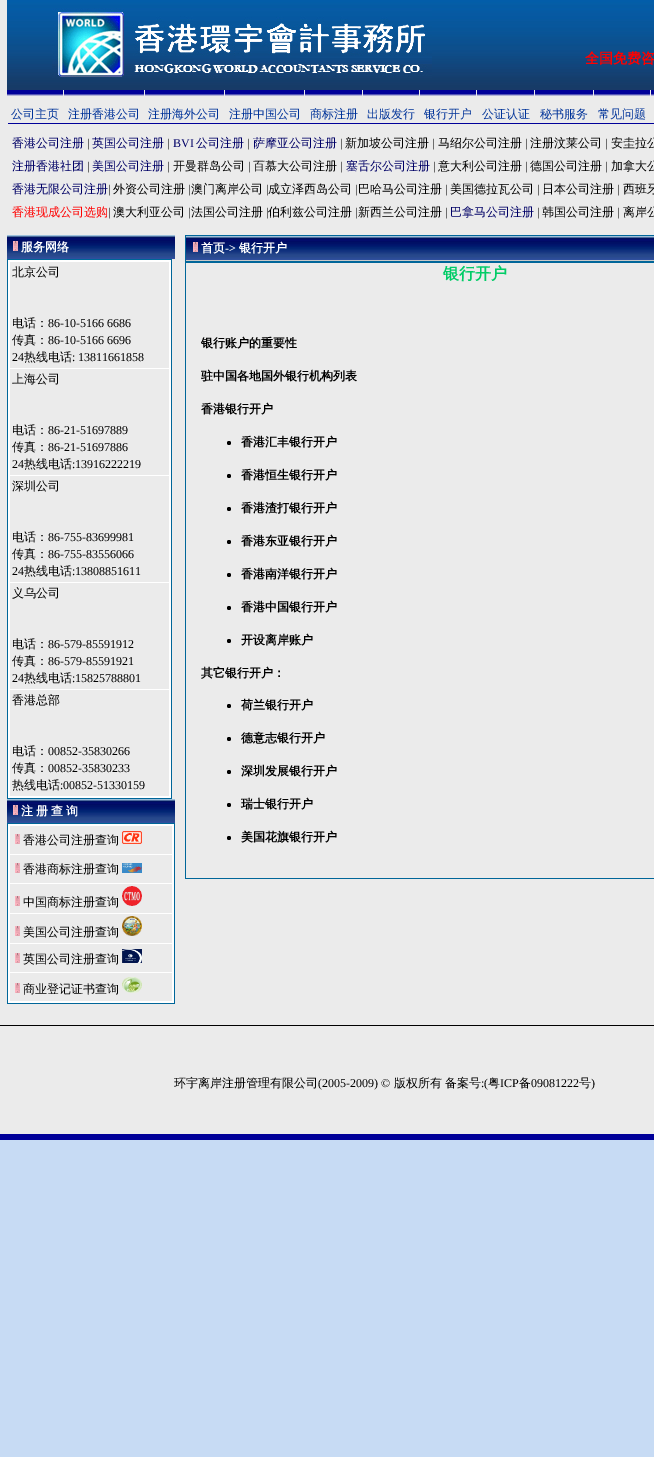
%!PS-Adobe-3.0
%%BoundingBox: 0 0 654 1457
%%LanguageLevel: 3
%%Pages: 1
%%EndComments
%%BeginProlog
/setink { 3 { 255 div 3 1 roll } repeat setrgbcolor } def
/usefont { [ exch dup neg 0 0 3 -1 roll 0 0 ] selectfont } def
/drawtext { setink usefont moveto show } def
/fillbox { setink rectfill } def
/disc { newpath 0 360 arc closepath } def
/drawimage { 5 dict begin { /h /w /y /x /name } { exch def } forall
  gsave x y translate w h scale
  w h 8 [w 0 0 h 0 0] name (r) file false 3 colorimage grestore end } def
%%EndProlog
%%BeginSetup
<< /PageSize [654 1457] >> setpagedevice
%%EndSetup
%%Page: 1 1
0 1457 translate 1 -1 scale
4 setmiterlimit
0 0 654 1457 199 219 244 fillbox
0 0 654 1134 235 235 235 fillbox
(assets/img1.rgb) 7 0 425 90 drawimage
(assets/img2.rgb) 52 8 380 70 drawimage
(assets/img3.rgb) 432 0 222 90 drawimage
(全国免费咨) 585 63 /WenQuanYiZenHei-Bold 14 255 0 0 drawtext
(assets/img4.rgb) 7 90 56 6 drawimage
(assets/img5.rgb) 64 90 80 6 drawimage
(assets/img6.rgb) 145 90 79 6 drawimage
(assets/img6.rgb) 225 90 79 6 drawimage
(assets/img7.rgb) 305 90 57 6 drawimage
(assets/img4.rgb) 363 90 56 6 drawimage
(assets/img4.rgb) 420 90 56 6 drawimage
(assets/img7.rgb) 477 90 57 6 drawimage
(assets/img8.rgb) 535 90 58 6 drawimage
(assets/img4.rgb) 594 90 56 6 drawimage
(assets/img9.rgb) 651 90 3 6 drawimage
(公司主页) 11 118 /WenQuanYiZenHei-Medium 12 0 51 153 drawtext
(注册香港公司) 68 118 /WenQuanYiZenHei-Medium 12 0 51 153 drawtext
(注册海外公司) 148 118 /WenQuanYiZenHei-Medium 12 0 51 153 drawtext
(注册中国公司) 229 118 /WenQuanYiZenHei-Medium 12 0 51 153 drawtext
(商标注册) 310 118 /WenQuanYiZenHei-Medium 12 0 51 153 drawtext
(出版发行) 367 118 /WenQuanYiZenHei-Medium 12 0 51 153 drawtext
(银行开户) 424 118 /WenQuanYiZenHei-Medium 12 0 51 153 drawtext
(公证认证) 482 118 /WenQuanYiZenHei-Medium 12 0 51 153 drawtext
(秘书服务) 540 118 /WenQuanYiZenHei-Medium 12 0 51 153 drawtext
(常见问题) 598 118 /WenQuanYiZenHei-Medium 12 0 51 153 drawtext
8 123 646 1 0 0 153 fillbox
(香港公司注册) 12 147 /WenQuanYiZenHei-Medium 12 0 0 102 drawtext
(|) 87 147 /LiberationSerif-Regular 12 0 0 0 drawtext
(英国公司注册) 92 147 /WenQuanYiZenHei-Medium 12 0 0 102 drawtext
(|) 167 147 /LiberationSerif-Regular 12 0 0 0 drawtext
(BVI) 173 147 /LiberationSerif-Regular 12 0 0 102 drawtext
(公司注册) 196 147 /WenQuanYiZenHei-Medium 12 0 0 102 drawtext
(|) 247 147 /LiberationSerif-Regular 12 0 0 0 drawtext
(萨摩亚公司注册) 253 147 /WenQuanYiZenHei-Medium 12 0 0 102 drawtext
(|) 340 147 /LiberationSerif-Regular 12 0 0 0 drawtext
(新加坡公司注册) 345 147 /WenQuanYiZenHei-Medium 12 0 0 0 drawtext
(|) 432 147 /LiberationSerif-Regular 12 0 0 0 drawtext
(马绍尔公司注册) 438 147 /WenQuanYiZenHei-Medium 12 0 0 0 drawtext
(|) 525 147 /LiberationSerif-Regular 12 0 0 0 drawtext
(注册汶莱公司) 530 147 /WenQuanYiZenHei-Medium 12 0 0 0 drawtext
(|) 605 147 /LiberationSerif-Regular 12 0 0 0 drawtext
(安圭拉公) 611 147 /WenQuanYiZenHei-Medium 12 0 0 0 drawtext
(注册香港社团) 12 170 /WenQuanYiZenHei-Medium 12 0 0 102 drawtext
(|) 87 170 /LiberationSerif-Regular 12 0 0 0 drawtext
(美国公司注册) 92 170 /WenQuanYiZenHei-Medium 12 0 0 102 drawtext
(|) 167 170 /LiberationSerif-Regular 12 0 0 0 drawtext
(开曼群岛公司) 173 170 /WenQuanYiZenHei-Medium 12 0 0 0 drawtext
(|) 248 170 /LiberationSerif-Regular 12 0 0 0 drawtext
(百慕大公司注册) 253 170 /WenQuanYiZenHei-Medium 12 0 0 0 drawtext
(|) 340 170 /LiberationSerif-Regular 12 0 0 0 drawtext
(塞舌尔公司注册) 346 170 /WenQuanYiZenHei-Medium 12 0 0 102 drawtext
(|) 433 170 /LiberationSerif-Regular 12 0 0 0 drawtext
(意大利公司注册) 438 170 /WenQuanYiZenHei-Medium 12 0 0 0 drawtext
(|) 525 170 /LiberationSerif-Regular 12 0 0 0 drawtext
(德国公司注册) 530 170 /WenQuanYiZenHei-Medium 12 0 0 0 drawtext
(|) 605 170 /LiberationSerif-Regular 12 0 0 0 drawtext
(加拿大公) 611 170 /WenQuanYiZenHei-Medium 12 0 0 0 drawtext
(香港无限公司注册) 12 193 /WenQuanYiZenHei-Medium 12 0 0 102 drawtext
(|) 108 193 /LiberationSerif-Regular 12 0 0 0 drawtext
(外资公司注册) 113 193 /WenQuanYiZenHei-Medium 12 0 0 0 drawtext
(|) 188 193 /LiberationSerif-Regular 12 0 0 0 drawtext
(澳门离岸公司) 191 193 /WenQuanYiZenHei-Medium 12 0 0 0 drawtext
(|) 266 193 /LiberationSerif-Regular 12 0 0 0 drawtext
(成立泽西岛公司) 268 193 /WenQuanYiZenHei-Medium 12 0 0 0 drawtext
(|) 355 193 /LiberationSerif-Regular 12 0 0 0 drawtext
(巴哈马公司注册) 358 193 /WenQuanYiZenHei-Medium 12 0 0 0 drawtext
(|) 445 193 /LiberationSerif-Regular 12 0 0 0 drawtext
(美国德拉瓦公司) 450 193 /WenQuanYiZenHei-Medium 12 0 0 0 drawtext
(|) 537 193 /LiberationSerif-Regular 12 0 0 0 drawtext
(日本公司注册) 542 193 /WenQuanYiZenHei-Medium 12 0 0 0 drawtext
(|) 617 193 /LiberationSerif-Regular 12 0 0 0 drawtext
(西班牙) 623 193 /WenQuanYiZenHei-Medium 12 0 0 0 drawtext
(香港现成公司选购) 12 216 /WenQuanYiZenHei-Medium 12 255 0 0 drawtext
(|) 108 216 /LiberationSerif-Regular 12 0 0 0 drawtext
(澳大利亚公司) 113 216 /WenQuanYiZenHei-Medium 12 0 0 0 drawtext
(|) 188 216 /LiberationSerif-Regular 12 0 0 0 drawtext
(法国公司注册) 191 216 /WenQuanYiZenHei-Medium 12 0 0 0 drawtext
(|) 266 216 /LiberationSerif-Regular 12 0 0 0 drawtext
(伯利兹公司注册) 268 216 /WenQuanYiZenHei-Medium 12 0 0 0 drawtext
(|) 355 216 /LiberationSerif-Regular 12 0 0 0 drawtext
(新西兰公司注册) 358 216 /WenQuanYiZenHei-Medium 12 0 0 0 drawtext
(|) 445 216 /LiberationSerif-Regular 12 0 0 0 drawtext
(巴拿马公司注册) 450 216 /WenQuanYiZenHei-Medium 12 0 0 102 drawtext
(|) 537 216 /LiberationSerif-Regular 12 0 0 0 drawtext
(韩国公司注册) 542 216 /WenQuanYiZenHei-Medium 12 0 0 0 drawtext
(|) 617 216 /LiberationSerif-Regular 12 0 0 0 drawtext
(离岸公) 623 216 /WenQuanYiZenHei-Medium 12 0 0 0 drawtext
(assets/img10.rgb) 7 235 168 24 drawimage
(assets/img11.rgb) 13 241 5 10 drawimage
(服务网络) 21 251 /WenQuanYiZenHei-Bold 12 255 255 255 drawtext
7 259 165 540 0 102 153 fillbox
8 260 163 538 255 255 255 fillbox
10 262 159 106 235 235 235 fillbox
(北京公司) 12 276 /WenQuanYiZenHei-Medium 12 0 0 0 drawtext
(电话：) 12 327 /WenQuanYiZenHei-Medium 12 0 0 0 drawtext
(86-10-5166 6686) 48 327 /LiberationSerif-Regular 12 0 0 0 drawtext
(传真：) 12 344 /WenQuanYiZenHei-Medium 12 0 0 0 drawtext
(86-10-5166 6696) 48 344 /LiberationSerif-Regular 12 0 0 0 drawtext
(24) 12 361 /LiberationSerif-Regular 12 0 0 0 drawtext
(热线电话) 24 361 /WenQuanYiZenHei-Medium 12 0 0 0 drawtext
(: 13811661858) 72 361 /LiberationSerif-Regular 12 0 0 0 drawtext
10 369 159 106 235 235 235 fillbox
(上海公司) 12 383 /WenQuanYiZenHei-Medium 12 0 0 0 drawtext
(电话：) 12 434 /WenQuanYiZenHei-Medium 12 0 0 0 drawtext
(86-21-51697889) 48 434 /LiberationSerif-Regular 12 0 0 0 drawtext
(传真：) 12 451 /WenQuanYiZenHei-Medium 12 0 0 0 drawtext
(86-21-51697886) 48 451 /LiberationSerif-Regular 12 0 0 0 drawtext
(24) 12 468 /LiberationSerif-Regular 12 0 0 0 drawtext
(热线电话) 24 468 /WenQuanYiZenHei-Medium 12 0 0 0 drawtext
(:13916222219) 72 468 /LiberationSerif-Regular 12 0 0 0 drawtext
10 476 159 106 235 235 235 fillbox
(深圳公司) 12 490 /WenQuanYiZenHei-Medium 12 0 0 0 drawtext
(电话：) 12 541 /WenQuanYiZenHei-Medium 12 0 0 0 drawtext
(86-755-83699981) 48 541 /LiberationSerif-Regular 12 0 0 0 drawtext
(传真：) 12 558 /WenQuanYiZenHei-Medium 12 0 0 0 drawtext
(86-755-83556066) 48 558 /LiberationSerif-Regular 12 0 0 0 drawtext
(24) 12 575 /LiberationSerif-Regular 12 0 0 0 drawtext
(热线电话) 24 575 /WenQuanYiZenHei-Medium 12 0 0 0 drawtext
(:13808851611) 72 575 /LiberationSerif-Regular 12 0 0 0 drawtext
10 583 159 106 235 235 235 fillbox
(义乌公司) 12 597 /WenQuanYiZenHei-Medium 12 0 0 0 drawtext
(电话：) 12 648 /WenQuanYiZenHei-Medium 12 0 0 0 drawtext
(86-579-85591912) 48 648 /LiberationSerif-Regular 12 0 0 0 drawtext
(传真：) 12 665 /WenQuanYiZenHei-Medium 12 0 0 0 drawtext
(86-579-85591921) 48 665 /LiberationSerif-Regular 12 0 0 0 drawtext
(24) 12 682 /LiberationSerif-Regular 12 0 0 0 drawtext
(热线电话) 24 682 /WenQuanYiZenHei-Medium 12 0 0 0 drawtext
(:15825788801) 72 682 /LiberationSerif-Regular 12 0 0 0 drawtext
10 690 159 106 235 235 235 fillbox
(香港总部) 12 704 /WenQuanYiZenHei-Medium 12 0 0 0 drawtext
(电话：) 12 755 /WenQuanYiZenHei-Medium 12 0 0 0 drawtext
(00852-35830266) 48 755 /LiberationSerif-Regular 12 0 0 0 drawtext
(传真：) 12 772 /WenQuanYiZenHei-Medium 12 0 0 0 drawtext
(00852-35830233) 48 772 /LiberationSerif-Regular 12 0 0 0 drawtext
(热线电话) 12 789 /WenQuanYiZenHei-Medium 12 0 0 0 drawtext
(:00852-51330159) 60 789 /LiberationSerif-Regular 12 0 0 0 drawtext
(assets/img10.rgb) 7 799 168 24 drawimage
(assets/img11.rgb) 13 805 5 10 drawimage
/WenQuanYiZenHei-Bold 12 usefont
255 255 255 setink
21 815 moveto -0.5 0 32 (注 册 查 询) widthshow
7 823 168 181 0 102 153 fillbox
8 824 166 179 255 255 255 fillbox
10 826 162 28 235 235 235 fillbox
(assets/img11.rgb) 15 834 5 10 drawimage
(香港公司注册查询) 23 844 /WenQuanYiZenHei-Medium 12 0 0 0 drawtext
(assets/img12.rgb) 122 831 20 13 drawimage
10 855 162 28 235 235 235 fillbox
(assets/img13.rgb) 15 863 5 10 drawimage
(香港商标注册查询) 23 873 /WenQuanYiZenHei-Medium 12 0 0 0 drawtext
(assets/img14.rgb) 122 863 20 10 drawimage
10 884 162 29 235 235 235 fillbox
(assets/img11.rgb) 15 896 5 10 drawimage
(中国商标注册查询) 23 906 /WenQuanYiZenHei-Medium 12 0 0 0 drawtext
(assets/img15.rgb) 122 886 20 20 drawimage
10 914 162 29 235 235 235 fillbox
(assets/img11.rgb) 15 926 5 10 drawimage
(美国公司注册查询) 23 936 /WenQuanYiZenHei-Medium 12 0 0 0 drawtext
(assets/img16.rgb) 122 916 20 20 drawimage
10 944 162 28 235 235 235 fillbox
(assets/img11.rgb) 15 953 5 10 drawimage
(英国公司注册查询) 23 963 /WenQuanYiZenHei-Medium 12 0 0 0 drawtext
(assets/img17.rgb) 122 949 20 14 drawimage
10 973 162 28 235 235 235 fillbox
(assets/img11.rgb) 15 983 5 10 drawimage
(商业登记证书查询) 23 993 /WenQuanYiZenHei-Medium 12 0 0 0 drawtext
(assets/img18.rgb) 122 977 20 16 drawimage
185 235 469 644 0 102 153 fillbox
(assets/img19.rgb) 186 236 468 25 drawimage
(assets/img11.rgb) 193 242 5 10 drawimage
(首页) 201 252 /WenQuanYiZenHei-Bold 12 255 255 255 drawtext
(->) 225 252 /LiberationSerif-Bold 12 255 255 255 drawtext
(银行开户) 239 252 /WenQuanYiZenHei-Bold 12 255 255 255 drawtext
186 263 468 615 235 235 235 fillbox
(银行开户) 443 279 /WenQuanYiZenHei-Bold 16 0 204 102 drawtext
(银行账户的重要性) 201 347 /WenQuanYiZenHei-Bold 12 0 0 0 drawtext
(驻中国各地国外银行机构列表) 201 380 /WenQuanYiZenHei-Bold 12 0 0 0 drawtext
(香港银行开户) 201 413 /WenQuanYiZenHei-Bold 12 0 0 0 drawtext
229 443 2 disc fill
(香港汇丰银行开户) 241 446 /WenQuanYiZenHei-Bold 12 0 0 0 drawtext
229 476 2 disc fill
(香港恒生银行开户) 241 479 /WenQuanYiZenHei-Bold 12 0 0 0 drawtext
229 509 2 disc fill
(香港渣打银行开户) 241 512 /WenQuanYiZenHei-Bold 12 0 0 0 drawtext
229 542 2 disc fill
(香港东亚银行开户) 241 545 /WenQuanYiZenHei-Bold 12 0 0 0 drawtext
229 575 2 disc fill
(香港南洋银行开户) 241 578 /WenQuanYiZenHei-Bold 12 0 0 0 drawtext
229 608 2 disc fill
(香港中国银行开户) 241 611 /WenQuanYiZenHei-Bold 12 0 0 0 drawtext
229 641 2 disc fill
(开设离岸账户) 241 644 /WenQuanYiZenHei-Bold 12 0 0 0 drawtext
(其它银行开户：) 201 677 /WenQuanYiZenHei-Bold 12 0 0 0 drawtext
229 706 2 disc fill
(荷兰银行开户) 241 709 /WenQuanYiZenHei-Bold 12 0 0 0 drawtext
229 739 2 disc fill
(德意志银行开户) 241 742 /WenQuanYiZenHei-Bold 12 0 0 0 drawtext
229 772 2 disc fill
(深圳发展银行开户) 241 775 /WenQuanYiZenHei-Bold 12 0 0 0 drawtext
229 805 2 disc fill
(瑞士银行开户) 241 808 /WenQuanYiZenHei-Bold 12 0 0 0 drawtext
229 838 2 disc fill
(美国花旗银行开户) 241 841 /WenQuanYiZenHei-Bold 12 0 0 0 drawtext
0 1025 654 1 0 0 0 fillbox
(环宇离岸注册管理有限公司) 174 1087 /WenQuanYiZenHei-Medium 12 0 0 0 drawtext
(\(2005-2009\) ©) 318 1087 /LiberationSerif-Regular 12 0 0 0 drawtext
(版权所有) 394 1087 /WenQuanYiZenHei-Medium 12 0 0 0 drawtext
(备案号) 445 1087 /WenQuanYiZenHei-Medium 12 0 0 0 drawtext
(:\() 481 1087 /LiberationSerif-Regular 12 0 0 0 drawtext
(粤) 488 1087 /WenQuanYiZenHei-Medium 12 0 0 0 drawtext
(ICP) 500 1087 /LiberationSerif-Regular 12 0 0 0 drawtext
(备) 519 1087 /WenQuanYiZenHei-Medium 12 0 0 0 drawtext
(09081222) 531 1087 /LiberationSerif-Regular 12 0 0 0 drawtext
(号) 579 1087 /WenQuanYiZenHei-Medium 12 0 0 0 drawtext
(\)) 591 1087 /LiberationSerif-Regular 12 0 0 0 drawtext
0 1134 654 6 0 0 153 fillbox
showpage
%%EOF
